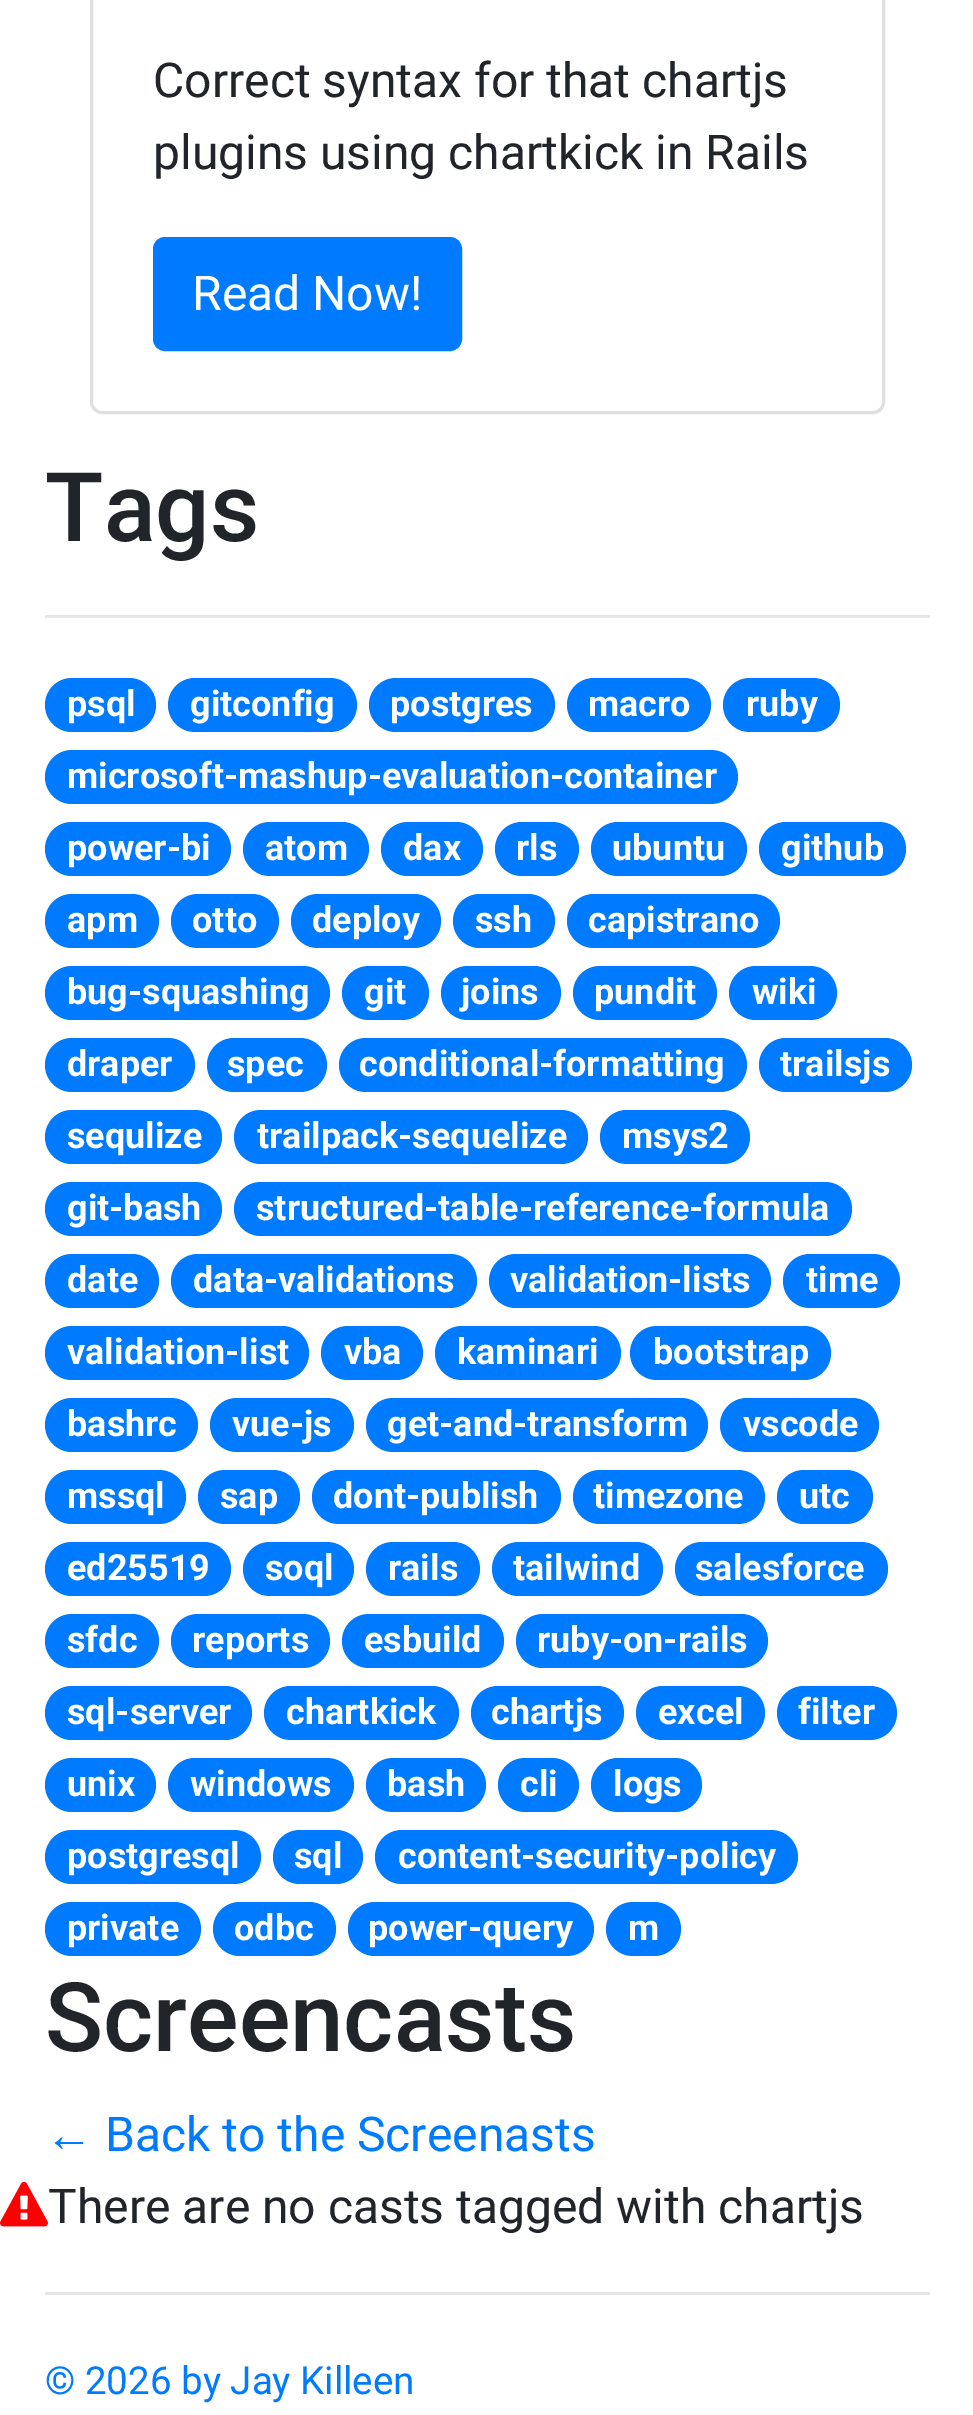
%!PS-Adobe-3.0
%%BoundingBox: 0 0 973 2415
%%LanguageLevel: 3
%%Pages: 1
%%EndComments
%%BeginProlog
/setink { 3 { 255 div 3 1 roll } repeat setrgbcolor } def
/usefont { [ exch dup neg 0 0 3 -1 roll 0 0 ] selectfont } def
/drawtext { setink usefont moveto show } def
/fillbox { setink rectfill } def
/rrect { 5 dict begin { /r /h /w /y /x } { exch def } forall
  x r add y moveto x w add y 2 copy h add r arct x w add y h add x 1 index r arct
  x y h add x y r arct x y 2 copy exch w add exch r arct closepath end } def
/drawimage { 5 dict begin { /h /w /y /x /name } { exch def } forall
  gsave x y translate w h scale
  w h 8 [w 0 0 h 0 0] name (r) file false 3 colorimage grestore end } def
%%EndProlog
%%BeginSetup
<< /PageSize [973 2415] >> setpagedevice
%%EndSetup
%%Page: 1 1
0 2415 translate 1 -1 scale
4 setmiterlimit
0 0 973 2415 255 255 255 fillbox
223 223 223 setink
3 setlinewidth
91.5 -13.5 792 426 10.5 rrect stroke
(Correct syntax for that chartjs) 153 97 /Roboto-Regular 48 33 37 41 drawtext
(plugins using chartkick in Rails) 153 169 /Roboto-Regular 48 33 37 41 drawtext
0 123 255 setink
154.5 238.5 306 111 10.5 rrect gsave fill grestore
stroke
(Read Now!) 192 310 /Roboto-Regular 48 255 255 255 drawtext
(Tags) 45 541 /Roboto-Medium 96 33 37 41 drawtext
45 615 885 3 230 230 230 fillbox
0 123 255 setink
45 678 111 54 27 rrect fill
(psql) 67 716 /Roboto-Bold 36 255 255 255 drawtext
0 123 255 setink
168 678 189 54 27 rrect fill
(gitconfig) 190 716 /Roboto-Bold 36 255 255 255 drawtext
0 123 255 setink
369 678 186 54 27 rrect fill
(postgres) 390 716 /Roboto-Bold 36 255 255 255 drawtext
0 123 255 setink
567 678 144 54 27 rrect fill
(macro) 588 716 /Roboto-Bold 36 255 255 255 drawtext
0 123 255 setink
723 678 117 54 27 rrect fill
(ruby) 746 716 /Roboto-Bold 36 255 255 255 drawtext
0 123 255 setink
45 750 693 54 27 rrect fill
(microsoft-mashup-evaluation-container) 67 788 /Roboto-Bold 36 255 255 255 drawtext
0 123 255 setink
45 822 186 54 27 rrect fill
(power-bi) 67 860 /Roboto-Bold 36 255 255 255 drawtext
0 123 255 setink
243 822 126 54 27 rrect fill
(atom) 265 860 /Roboto-Bold 36 255 255 255 drawtext
0 123 255 setink
381 822 102 54 27 rrect fill
(dax) 403 860 /Roboto-Bold 36 255 255 255 drawtext
0 123 255 setink
495 822 84 54 27 rrect fill
(rls) 516 860 /Roboto-Bold 36 255 255 255 drawtext
0 123 255 setink
591 822 156 54 27 rrect fill
(ubuntu) 612 860 /Roboto-Bold 36 255 255 255 drawtext
0 123 255 setink
759 822 147 54 27 rrect fill
(github) 781 860 /Roboto-Bold 36 255 255 255 drawtext
0 123 255 setink
45 894 114 54 27 rrect fill
(apm) 67 932 /Roboto-Bold 36 255 255 255 drawtext
0 123 255 setink
171 894 108 54 27 rrect fill
(otto) 192 932 /Roboto-Bold 36 255 255 255 drawtext
0 123 255 setink
291 894 150 54 27 rrect fill
(deploy) 312 932 /Roboto-Bold 36 255 255 255 drawtext
0 123 255 setink
453 894 102 54 27 rrect fill
(ssh) 475 932 /Roboto-Bold 36 255 255 255 drawtext
0 123 255 setink
567 894 213 54 27 rrect fill
(capistrano) 588 932 /Roboto-Bold 36 255 255 255 drawtext
0 123 255 setink
45 966 285 54 27 rrect fill
(bug-squashing) 67 1004 /Roboto-Bold 36 255 255 255 drawtext
0 123 255 setink
342 966 87 54 27 rrect fill
(git) 364 1004 /Roboto-Bold 36 255 255 255 drawtext
0 123 255 setink
441 966 120 54 27 rrect fill
(joins) 461 1004 /Roboto-Bold 36 255 255 255 drawtext
0 123 255 setink
573 966 144 54 27 rrect fill
(pundit) 594 1004 /Roboto-Bold 36 255 255 255 drawtext
0 123 255 setink
729 966 108 54 27 rrect fill
(wiki) 752 1004 /Roboto-Bold 36 255 255 255 drawtext
0 123 255 setink
45 1038 150 54 27 rrect fill
(draper) 67 1076 /Roboto-Bold 36 255 255 255 drawtext
0 123 255 setink
207 1038 120 54 27 rrect fill
(spec) 227 1076 /Roboto-Bold 36 255 255 255 drawtext
0 123 255 setink
339 1038 408 54 27 rrect fill
(conditional-formatting) 359 1076 /Roboto-Bold 36 255 255 255 drawtext
0 123 255 setink
759 1038 153 54 27 rrect fill
(trailsjs) 780 1076 /Roboto-Bold 36 255 255 255 drawtext
0 123 255 setink
45 1110 177 54 27 rrect fill
(sequlize) 67 1148 /Roboto-Bold 36 255 255 255 drawtext
0 123 255 setink
234 1110 354 54 27 rrect fill
(trailpack-sequelize) 257 1148 /Roboto-Bold 36 255 255 255 drawtext
0 123 255 setink
600 1110 150 54 27 rrect fill
(msys2) 622 1148 /Roboto-Bold 36 255 255 255 drawtext
0 123 255 setink
45 1182 177 54 27 rrect fill
(git-bash) 67 1220 /Roboto-Bold 36 255 255 255 drawtext
0 123 255 setink
234 1182 618 54 27 rrect fill
(structured-table-reference-formula) 256 1220 /Roboto-Bold 36 255 255 255 drawtext
0 123 255 setink
45 1254 114 54 27 rrect fill
(date) 67 1292 /Roboto-Bold 36 255 255 255 drawtext
0 123 255 setink
171 1254 306 54 27 rrect fill
(data-validations) 193 1292 /Roboto-Bold 36 255 255 255 drawtext
0 123 255 setink
489 1254 282 54 27 rrect fill
(validation-lists) 510 1292 /Roboto-Bold 36 255 255 255 drawtext
0 123 255 setink
783 1254 117 54 27 rrect fill
(time) 806 1292 /Roboto-Bold 36 255 255 255 drawtext
0 123 255 setink
45 1326 264 54 27 rrect fill
(validation-list) 67 1364 /Roboto-Bold 36 255 255 255 drawtext
0 123 255 setink
321 1326 102 54 27 rrect fill
(vba) 344 1364 /Roboto-Bold 36 255 255 255 drawtext
0 123 255 setink
435 1326 186 54 27 rrect fill
(kaminari) 457 1364 /Roboto-Bold 36 255 255 255 drawtext
0 123 255 setink
630 1326 201 54 27 rrect fill
(bootstrap) 653 1364 /Roboto-Bold 36 255 255 255 drawtext
0 123 255 setink
45 1398 153 54 27 rrect fill
(bashrc) 67 1436 /Roboto-Bold 36 255 255 255 drawtext
0 123 255 setink
210 1398 144 54 27 rrect fill
(vue-js) 232 1436 /Roboto-Bold 36 255 255 255 drawtext
0 123 255 setink
366 1398 342 54 27 rrect fill
(get-and-transform) 387 1436 /Roboto-Bold 36 255 255 255 drawtext
0 123 255 setink
720 1398 159 54 27 rrect fill
(vscode) 743 1436 /Roboto-Bold 36 255 255 255 drawtext
0 123 255 setink
45 1470 141 54 27 rrect fill
(mssql) 67 1508 /Roboto-Bold 36 255 255 255 drawtext
0 123 255 setink
198 1470 102 54 27 rrect fill
(sap) 220 1508 /Roboto-Bold 36 255 255 255 drawtext
0 123 255 setink
312 1470 249 54 27 rrect fill
(dont-publish) 333 1508 /Roboto-Bold 36 255 255 255 drawtext
0 123 255 setink
573 1470 192 54 27 rrect fill
(timezone) 593 1508 /Roboto-Bold 36 255 255 255 drawtext
0 123 255 setink
777 1470 96 54 27 rrect fill
(utc) 799 1508 /Roboto-Bold 36 255 255 255 drawtext
0 123 255 setink
45 1542 186 54 27 rrect fill
(ed25519) 67 1580 /Roboto-Bold 36 255 255 255 drawtext
0 123 255 setink
243 1542 111 54 27 rrect fill
(soql) 265 1580 /Roboto-Bold 36 255 255 255 drawtext
0 123 255 setink
366 1542 114 54 27 rrect fill
(rails) 388 1580 /Roboto-Bold 36 255 255 255 drawtext
0 123 255 setink
492 1542 171 54 27 rrect fill
(tailwind) 513 1580 /Roboto-Bold 36 255 255 255 drawtext
0 123 255 setink
675 1542 213 54 27 rrect fill
(salesforce) 695 1580 /Roboto-Bold 36 255 255 255 drawtext
0 123 255 setink
45 1614 114 54 27 rrect fill
(sfdc) 67 1652 /Roboto-Bold 36 255 255 255 drawtext
0 123 255 setink
171 1614 159 54 27 rrect fill
(reports) 192 1652 /Roboto-Bold 36 255 255 255 drawtext
0 123 255 setink
342 1614 162 54 27 rrect fill
(esbuild) 364 1652 /Roboto-Bold 36 255 255 255 drawtext
0 123 255 setink
516 1614 252 54 27 rrect fill
(ruby-on-rails) 537 1652 /Roboto-Bold 36 255 255 255 drawtext
0 123 255 setink
45 1686 207 54 27 rrect fill
(sql-server) 67 1724 /Roboto-Bold 36 255 255 255 drawtext
0 123 255 setink
264 1686 195 54 27 rrect fill
(chartkick) 286 1724 /Roboto-Bold 36 255 255 255 drawtext
0 123 255 setink
471 1686 153 54 27 rrect fill
(chartjs) 491 1724 /Roboto-Bold 36 255 255 255 drawtext
0 123 255 setink
636 1686 129 54 27 rrect fill
(excel) 658 1724 /Roboto-Bold 36 255 255 255 drawtext
0 123 255 setink
777 1686 120 54 27 rrect fill
(filter) 798 1724 /Roboto-Bold 36 255 255 255 drawtext
0 123 255 setink
45 1758 111 54 27 rrect fill
(unix) 67 1796 /Roboto-Bold 36 255 255 255 drawtext
0 123 255 setink
168 1758 186 54 27 rrect fill
(windows) 190 1796 /Roboto-Bold 36 255 255 255 drawtext
0 123 255 setink
366 1758 120 54 27 rrect fill
(bash) 387 1796 /Roboto-Bold 36 255 255 255 drawtext
0 123 255 setink
498 1758 81 54 27 rrect fill
(cli) 520 1796 /Roboto-Bold 36 255 255 255 drawtext
0 123 255 setink
591 1758 111 54 27 rrect fill
(logs) 613 1796 /Roboto-Bold 36 255 255 255 drawtext
0 123 255 setink
45 1830 216 54 27 rrect fill
(postgresql) 67 1868 /Roboto-Bold 36 255 255 255 drawtext
0 123 255 setink
273 1830 90 54 27 rrect fill
(sql) 294 1868 /Roboto-Bold 36 255 255 255 drawtext
0 123 255 setink
375 1830 423 54 27 rrect fill
(content-security-policy) 398 1868 /Roboto-Bold 36 255 255 255 drawtext
0 123 255 setink
45 1902 156 54 27 rrect fill
(private) 67 1940 /Roboto-Bold 36 255 255 255 drawtext
0 123 255 setink
213 1902 123 54 27 rrect fill
(odbc) 234 1940 /Roboto-Bold 36 255 255 255 drawtext
0 123 255 setink
348 1902 246 54 27 rrect fill
(power-query) 368 1940 /Roboto-Bold 36 255 255 255 drawtext
0 123 255 setink
606 1902 75 54 27 rrect fill
(m) 628 1940 /Roboto-Bold 36 255 255 255 drawtext
(Screencasts) 45 2051 /Roboto-Medium 96 33 37 41 drawtext
(←) 45 2151 /LiberationSans-Regular 48 0 123 255 drawtext
(Back to the Screenasts) 105 2151 /Roboto-Regular 48 0 123 255 drawtext
(assets/img1.rgb) 0 2181 48 46 drawimage
(There are no casts tagged with chartjs) 48 2223 /Roboto-Regular 48 33 37 41 drawtext
45 2292 885 3 230 230 230 fillbox
(© 2026 by Jay Killeen) 45 2394 /Roboto-Regular 38.5 0 123 255 drawtext
showpage
%%EOF
